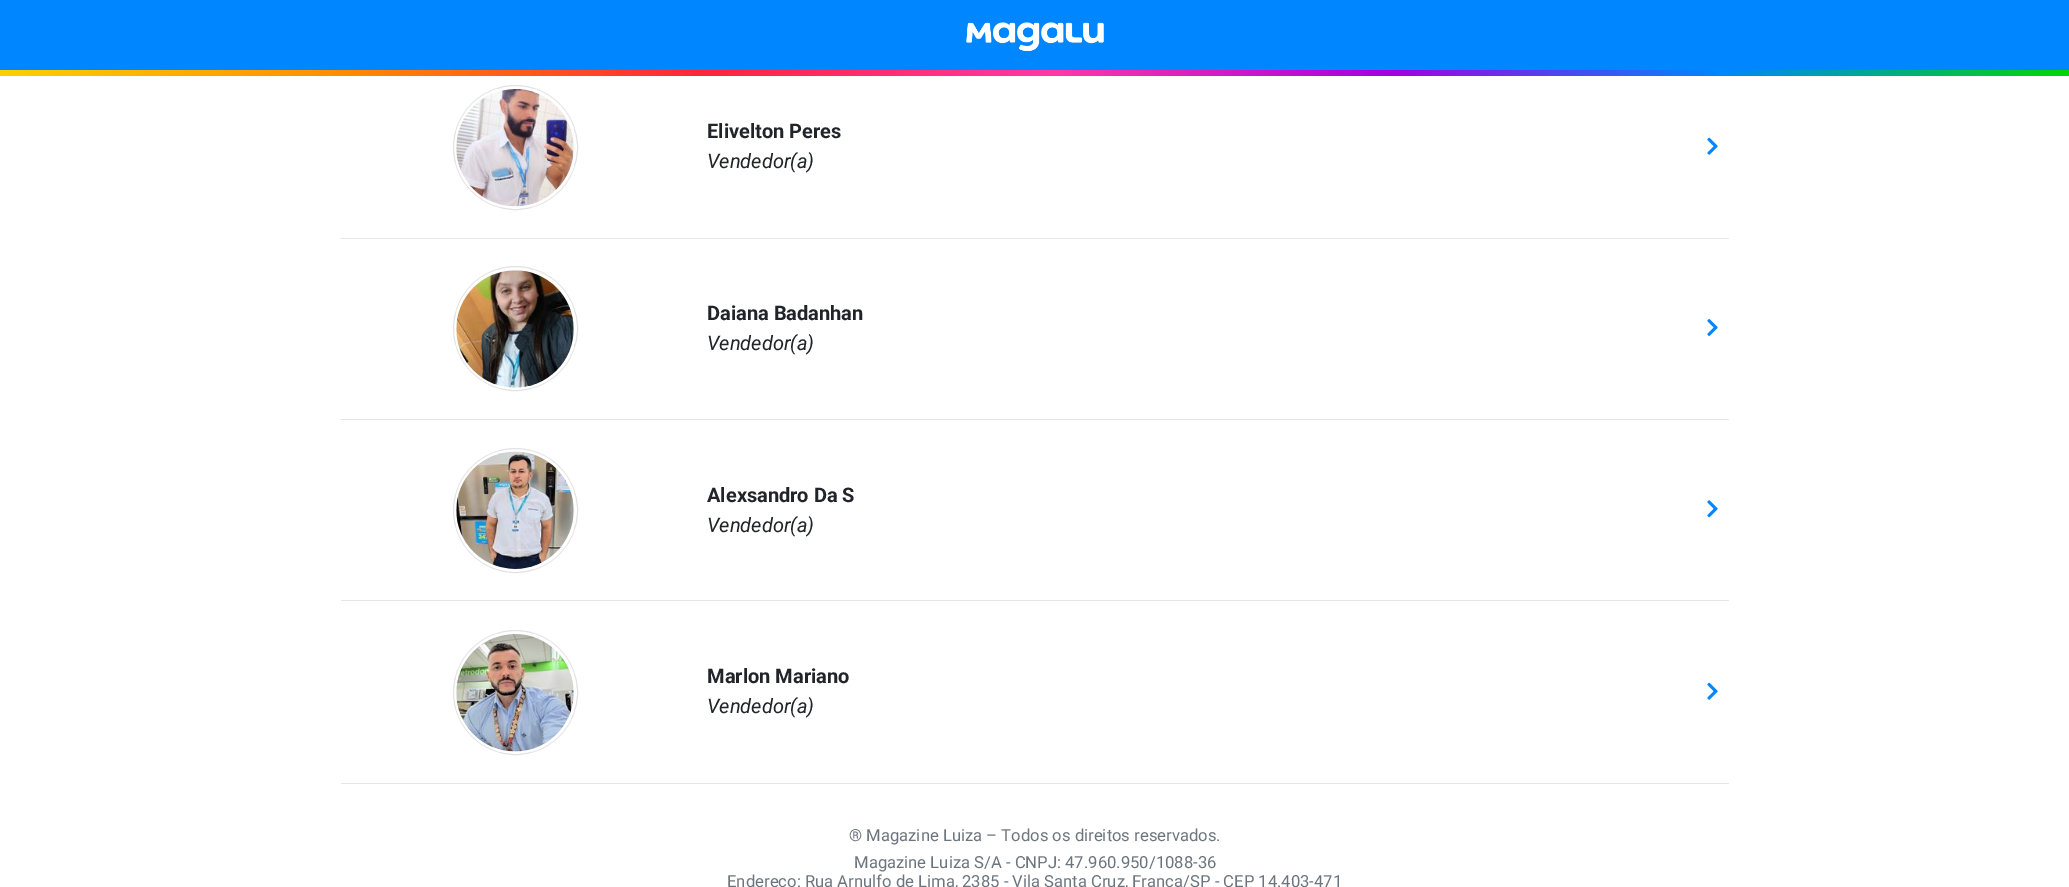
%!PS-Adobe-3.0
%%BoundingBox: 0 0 2069 887
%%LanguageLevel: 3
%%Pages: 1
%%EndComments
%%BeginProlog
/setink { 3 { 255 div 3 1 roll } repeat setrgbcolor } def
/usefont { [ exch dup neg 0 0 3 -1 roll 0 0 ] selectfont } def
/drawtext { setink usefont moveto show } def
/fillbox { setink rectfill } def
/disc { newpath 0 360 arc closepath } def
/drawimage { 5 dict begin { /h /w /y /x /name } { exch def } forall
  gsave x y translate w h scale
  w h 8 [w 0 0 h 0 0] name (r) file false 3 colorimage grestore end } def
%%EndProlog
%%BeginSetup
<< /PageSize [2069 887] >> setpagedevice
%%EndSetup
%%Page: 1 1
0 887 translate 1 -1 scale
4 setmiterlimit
0 0 2069 887 255 255 255 fillbox
0 0 2069 70 0 134 255 fillbox
(assets/img1.rgb) 966 22 138 30 drawimage
gsave 0 70 moveto 2069 70 lineto 2069 76 lineto 0 76 lineto closepath clip newpath
<< /ShadingType 2 /ColorSpace /DeviceRGB /Coords [0 73 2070 73] /Extend [true true] /Function << /FunctionType 3 /Domain [0 1] /Functions [<< /FunctionType 2 /Domain [0 1] /C0 [0.988 0.816 0] /C1 [1 0.541 0] /N 1 >> << /FunctionType 2 /Domain [0 1] /C0 [1 0.541 0] /C1 [1 0.145 0.227] /N 1 >> << /FunctionType 2 /Domain [0 1] /C0 [1 0.145 0.227] /C1 [1 0.216 0.659] /N 1 >> << /FunctionType 2 /Domain [0 1] /C0 [1 0.216 0.659] /C1 [0.643 0 0.882] /N 1 >> << /FunctionType 2 /Domain [0 1] /C0 [0.643 0 0.882] /C1 [0 0.525 1] /N 1 >> << /FunctionType 2 /Domain [0 1] /C0 [0 0.525 1] /C1 [0 0.839 0.016] /N 1 >>] /Bounds [0.17 0.34 0.51 0.67 0.83] /Encode [0 1 0 1 0 1 0 1 0 1 0 1] >> >> shfill grestore
227 227 227 setink
515.5 147.5 62 disc stroke
(assets/img2.rgb) 456 89 118 118 drawimage
(Elivelton Peres) 707 138 /Roboto-Bold 20 33 37 41 drawtext
(Vendedor\(a\)) 707 168 /Roboto-Italic 20 33 37 41 drawtext
(assets/img3.rgb) 1707 137 11 18 drawimage
341 238 1388 1 230 230 230 fillbox
227 227 227 setink
515.5 328.5 62 disc stroke
(assets/img4.rgb) 456 270 118 118 drawimage
(Daiana Badanhan) 707 320 /Roboto-Bold 20 33 37 41 drawtext
(Vendedor\(a\)) 707 350 /Roboto-Italic 20 33 37 41 drawtext
(assets/img5.rgb) 1707 319 11 17 drawimage
341 419 1388 1 230 230 230 fillbox
227 227 227 setink
515.5 510.5 62 disc stroke
(assets/img6.rgb) 456 451 118 118 drawimage
(Alexsandro Da S) 707 502 /Roboto-Bold 20 33 37 41 drawtext
(Vendedor\(a\)) 707 532 /Roboto-Italic 20 33 37 41 drawtext
(assets/img7.rgb) 1707 500 11 18 drawimage
341 600 1388 1 230 230 230 fillbox
227 227 227 setink
515.5 692.5 62 disc stroke
(assets/img8.rgb) 456 634 118 118 drawimage
(Marlon Mariano) 707 683 /Roboto-Bold 20 33 37 41 drawtext
(Vendedor\(a\)) 707 713 /Roboto-Italic 20 33 37 41 drawtext
(assets/img3.rgb) 1707 682 11 18 drawimage
341 783 1388 1 230 230 230 fillbox
(® Magazine Luiza – Todos os direitos reservados.) 849 841 /Roboto-Regular 16.65 108 117 125 drawtext
(Magazine Luiza S/A - CNPJ: 47.960.950/1088-36) 854 868 /Roboto-Regular 16.65 108 117 125 drawtext
(Endereço: Rua Arnulfo de Lima, 2385 - Vila Santa Cruz, Franca/SP - CEP 14.403-471) 727 887 /Roboto-Regular 16.65 108 117 125 drawtext
showpage
%%EOF
